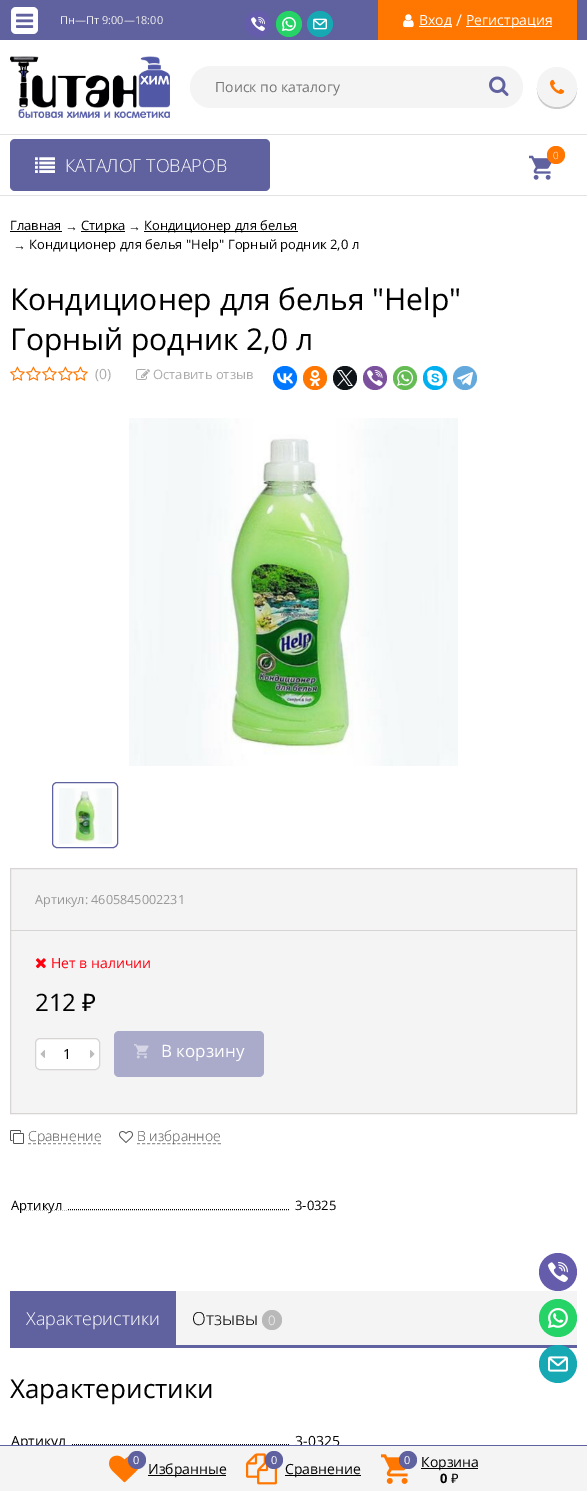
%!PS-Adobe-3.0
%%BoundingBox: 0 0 587 1491
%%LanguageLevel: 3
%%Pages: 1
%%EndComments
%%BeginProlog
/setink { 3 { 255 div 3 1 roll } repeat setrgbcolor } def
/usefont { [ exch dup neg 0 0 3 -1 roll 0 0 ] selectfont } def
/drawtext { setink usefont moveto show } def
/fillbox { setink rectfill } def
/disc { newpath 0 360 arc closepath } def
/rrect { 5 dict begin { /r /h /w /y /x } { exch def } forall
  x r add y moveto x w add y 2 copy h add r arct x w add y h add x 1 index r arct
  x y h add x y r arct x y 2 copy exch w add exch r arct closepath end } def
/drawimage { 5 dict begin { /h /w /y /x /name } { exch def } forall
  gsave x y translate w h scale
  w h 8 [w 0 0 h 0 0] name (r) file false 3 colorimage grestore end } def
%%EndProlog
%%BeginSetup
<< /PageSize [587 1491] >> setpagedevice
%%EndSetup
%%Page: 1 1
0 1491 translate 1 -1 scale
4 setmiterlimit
0 0 587 1491 255 255 255 fillbox
0 0 587 40 96 97 159 fillbox
255 255 255 setink
11 7 27 27 5 rrect fill
(assets/img1.rgb) 16 13 18 15 drawimage
(Пн—Пт 9:00—18:00) 60 24 /OpenSans-Regular 11 239 239 239 drawtext
102 92 172 setink
258 24 13 disc fill
(assets/img2.rgb) 251 17 14 14 drawimage
37 211 102 setink
289 24 13 disc fill
(assets/img3.rgb) 282 17 14 14 drawimage
22 169 179 setink
320 24 13 disc fill
(assets/img4.rgb) 313 18 14 12 drawimage
378 0 199 40 255 118 0 fillbox
(assets/img5.rgb) 403 14 11 14 drawimage
419 26 33 1 255 255 255 fillbox
(Вход) 419 25 /OpenSans-Regular 14 255 255 255 drawtext
(/) 456 26 /OpenSans-Regular 16 255 255 255 drawtext
466 26 86 1 255 255 255 fillbox
(Регистрация) 466 25 /OpenSans-Regular 14 255 255 255 drawtext
(assets/img6.rgb) 10 56 160 62 drawimage
244 244 244 setink
190 66 333 42 21 rrect fill
(Поиск по каталогу) 215 92 /OpenSans-Regular 14 117 117 117 drawtext
(assets/img7.rgb) 489 76 20 20 drawimage
204 204 204 setink
577 88 moveto 576 113 538 113 537 88 curveto 536 116 578 116 577 88 curveto closepath fill
244 244 244 setink
557 87 20 disc fill
(assets/img8.rgb) 550 79 15 15 drawimage
0 134 587 1 226 226 226 fillbox
0 195 587 1 226 226 226 fillbox
(assets/img9.rgb) 529 155 23 25 drawimage
255 118 0 setink
556 155 9 disc fill
(0) 553 159 /OpenSans-Light 10 255 255 255 drawtext
96 97 159 setink
10 139 260 52 5 rrect fill
(assets/img10.rgb) 35 157 20 16 drawimage
(КАТАЛОГ ТОВАРОВ) 65 172 /OpenSans-Light 18 255 255 255 drawtext
(Главная) 10 230 /OpenSans-Regular 13 0 0 0 drawtext
10 231 52 1 0 0 0 fillbox
(→) 65 231 /LiberationSans-Regular 13 0 0 0 drawtext
81 231 44 1 0 0 0 fillbox
(Стирка) 81 230 /OpenSans-Regular 13 0 0 0 drawtext
(→) 128 231 /LiberationSans-Regular 13 0 0 0 drawtext
144 231 154 1 0 0 0 fillbox
(Кондиционер для белья) 144 230 /OpenSans-Regular 13 0 0 0 drawtext
(→) 13 250 /LiberationSans-Regular 13 0 0 0 drawtext
(Кондиционер для белья "Help" Горный родник 2,0 л) 29 249 /OpenSans-Regular 13 0 0 0 drawtext
(Кондиционер для белья "Help") 10 310 /OpenSans-Regular 30 0 0 0 drawtext
(Горный родник 2,0 л) 10 350 /OpenSans-Regular 30 0 0 0 drawtext
(assets/img11.rgb) 10 366 15 15 drawimage
(assets/img11.rgb) 26 366 15 15 drawimage
(assets/img11.rgb) 42 366 15 15 drawimage
(assets/img11.rgb) 58 366 15 15 drawimage
(assets/img11.rgb) 73 366 15 15 drawimage
(\(0\)) 95 379 /OpenSans-Regular 14 171 171 171 drawtext
(assets/img12.rgb) 136 369 14 11 drawimage
(Оставить отзыв) 153 379 /OpenSans-Regular 13 171 171 171 drawtext
0 119 255 setink
285 378 12 disc fill
(assets/img13.rgb) 277 373 16 11 drawimage
255 119 0 setink
315 378 12 disc fill
(assets/img14.rgb) 309 370 12 16 drawimage
15 20 25 setink
345 378 12 disc fill
(assets/img15.rgb) 337 370 16 16 drawimage
123 81 157 setink
375 378 12 disc fill
(assets/img16.rgb) 367 370 16 16 drawimage
101 188 84 setink
405 378 12 disc fill
(assets/img17.rgb) 397 370 16 16 drawimage
0 175 240 setink
435 378 12 disc fill
(assets/img18.rgb) 427 370 16 16 drawimage
100 169 220 setink
465 378 12 disc fill
(assets/img19.rgb) 457 372 16 14 drawimage
(assets/img20.rgb) 129 418 329 348 drawimage
96 97 159 setink
52.5 782.5 65 65 4.5 rrect stroke
(assets/img21.rgb) 59 788 53 56 drawimage
244 244 244 setink
10.5 868.5 moveto 576.5 868.5 lineto 576.5 1113.5 lineto 10.5 1113.5 lineto closepath gsave fill grestore
216 212 212 setink
stroke
11 930 565 1 216 212 212 fillbox
(Артикул: 4605845002231) 35 904 /OpenSans-Regular 12.6 152 152 152 drawtext
(assets/img22.rgb) 36 958 10 11 drawimage
(Нет в наличии) 51 968 /OpenSans-Regular 14 255 0 15 drawtext
(212) 35 1011 /OpenSans-Regular 24 0 0 0 drawtext
(₽) 82 1011 /NotoSans-Regular 24 0 0 0 drawtext
255 255 255 setink
35.5 1038.5 64 31 4.5 rrect gsave fill grestore
216 212 212 setink
stroke
(assets/img23.rgb) 40 1050 5 8 drawimage
(1) 63 1059 /OpenSans-Regular 14 0 0 0 drawtext
(assets/img24.rgb) 90 1050 5 8 drawimage
170 171 202 setink
114 1031 150 46 5 rrect fill
(assets/img25.rgb) 134 1044 15 15 drawimage
(В корзину) 161 1057 /OpenSans-Regular 17 255 255 255 drawtext
(assets/img26.rgb) 10 1130 14 14 drawimage
151 148 148 setink
[3 2] 0 setdash
28 1143.5 moveto 101 1143.5 lineto stroke
(Сравнение) 28 1141 /OpenSans-Light 14 82 82 82 drawtext
(assets/img27.rgb) 119 1131 14 12 drawimage
151 148 148 setink
[3 2.06] 0 setdash
137 1143.5 moveto 221 1143.5 lineto stroke
(В избранное) 137 1141 /OpenSans-Light 14 82 82 82 drawtext
0 0 0 setink
[1 1] 0 setdash
20 1209.5 moveto 289 1209.5 lineto stroke
20 1209 47 1 255 255 255 fillbox
(Артикул) 11 1210 /OpenSans-Regular 13 0 0 0 drawtext
(3-0325) 295 1210 /OpenSans-Regular 13 0 0 0 drawtext
176 1291 401 54 244 244 244 fillbox
10 1345 567 3 96 97 159 fillbox
10 1291 166 54 96 97 159 fillbox
(Характеристики) 26 1325 /OpenSans-Light 18 255 255 255 drawtext
(Отзывы) 192 1325 /OpenSans-Light 18 0 0 0 drawtext
185 185 185 setink
272 1320 10 disc fill
(0) 268 1325 /OpenSans-Light 13 255 255 255 drawtext
(Характеристики) 10 1398 /OpenSans-Regular 26 0 0 0 drawtext
20 1444.5 moveto 289 1444.5 lineto stroke
20 1444 51 1 255 255 255 fillbox
(Артикул) 11 1446 /OpenSans-Regular 14 0 0 0 drawtext
(3-0325) 295 1446 /OpenSans-Regular 14 0 0 0 drawtext
102 92 172 setink
558 1272 19 disc fill
(assets/img28.rgb) 548 1262 20 20 drawimage
37 211 102 setink
558 1318 19 disc fill
(assets/img29.rgb) 548 1308 20 20 drawimage
22 169 179 setink
558 1364 19 disc fill
(assets/img30.rgb) 548 1356 20 16 drawimage
0 1446 587 45 244 244 244 fillbox
0 1445 587 1 96 97 159 fillbox
(assets/img31.rgb) 109 1455 30 28 drawimage
137 1460 9 disc fill
(0) 133 1464 /OpenSans-Regular 11 255 255 255 drawtext
148 1475 78 1 0 0 0 fillbox
(Избранные) 148 1474 /OpenSans-Regular 14 0 0 0 drawtext
(assets/img32.rgb) 246 1453 31 32 drawimage
96 97 159 setink
274 1460 9 disc fill
(0) 271 1464 /OpenSans-Regular 11 255 255 255 drawtext
285 1475 76 1 0 0 0 fillbox
(Сравнение) 285 1474 /OpenSans-Regular 14 0 0 0 drawtext
(assets/img33.rgb) 381 1454 27 30 drawimage
96 97 159 setink
408 1460 9 disc fill
(0) 404 1464 /OpenSans-Regular 11 255 255 255 drawtext
421 1468 57 1 0 0 0 fillbox
(Корзина) 421 1467 /OpenSans-Regular 14 0 0 0 drawtext
(0) 440 1483 /OpenSans-Bold 13 0 0 0 drawtext
(₽) 451 1483 /NotoSans-Regular 13 0 0 0 drawtext
showpage
%%EOF
